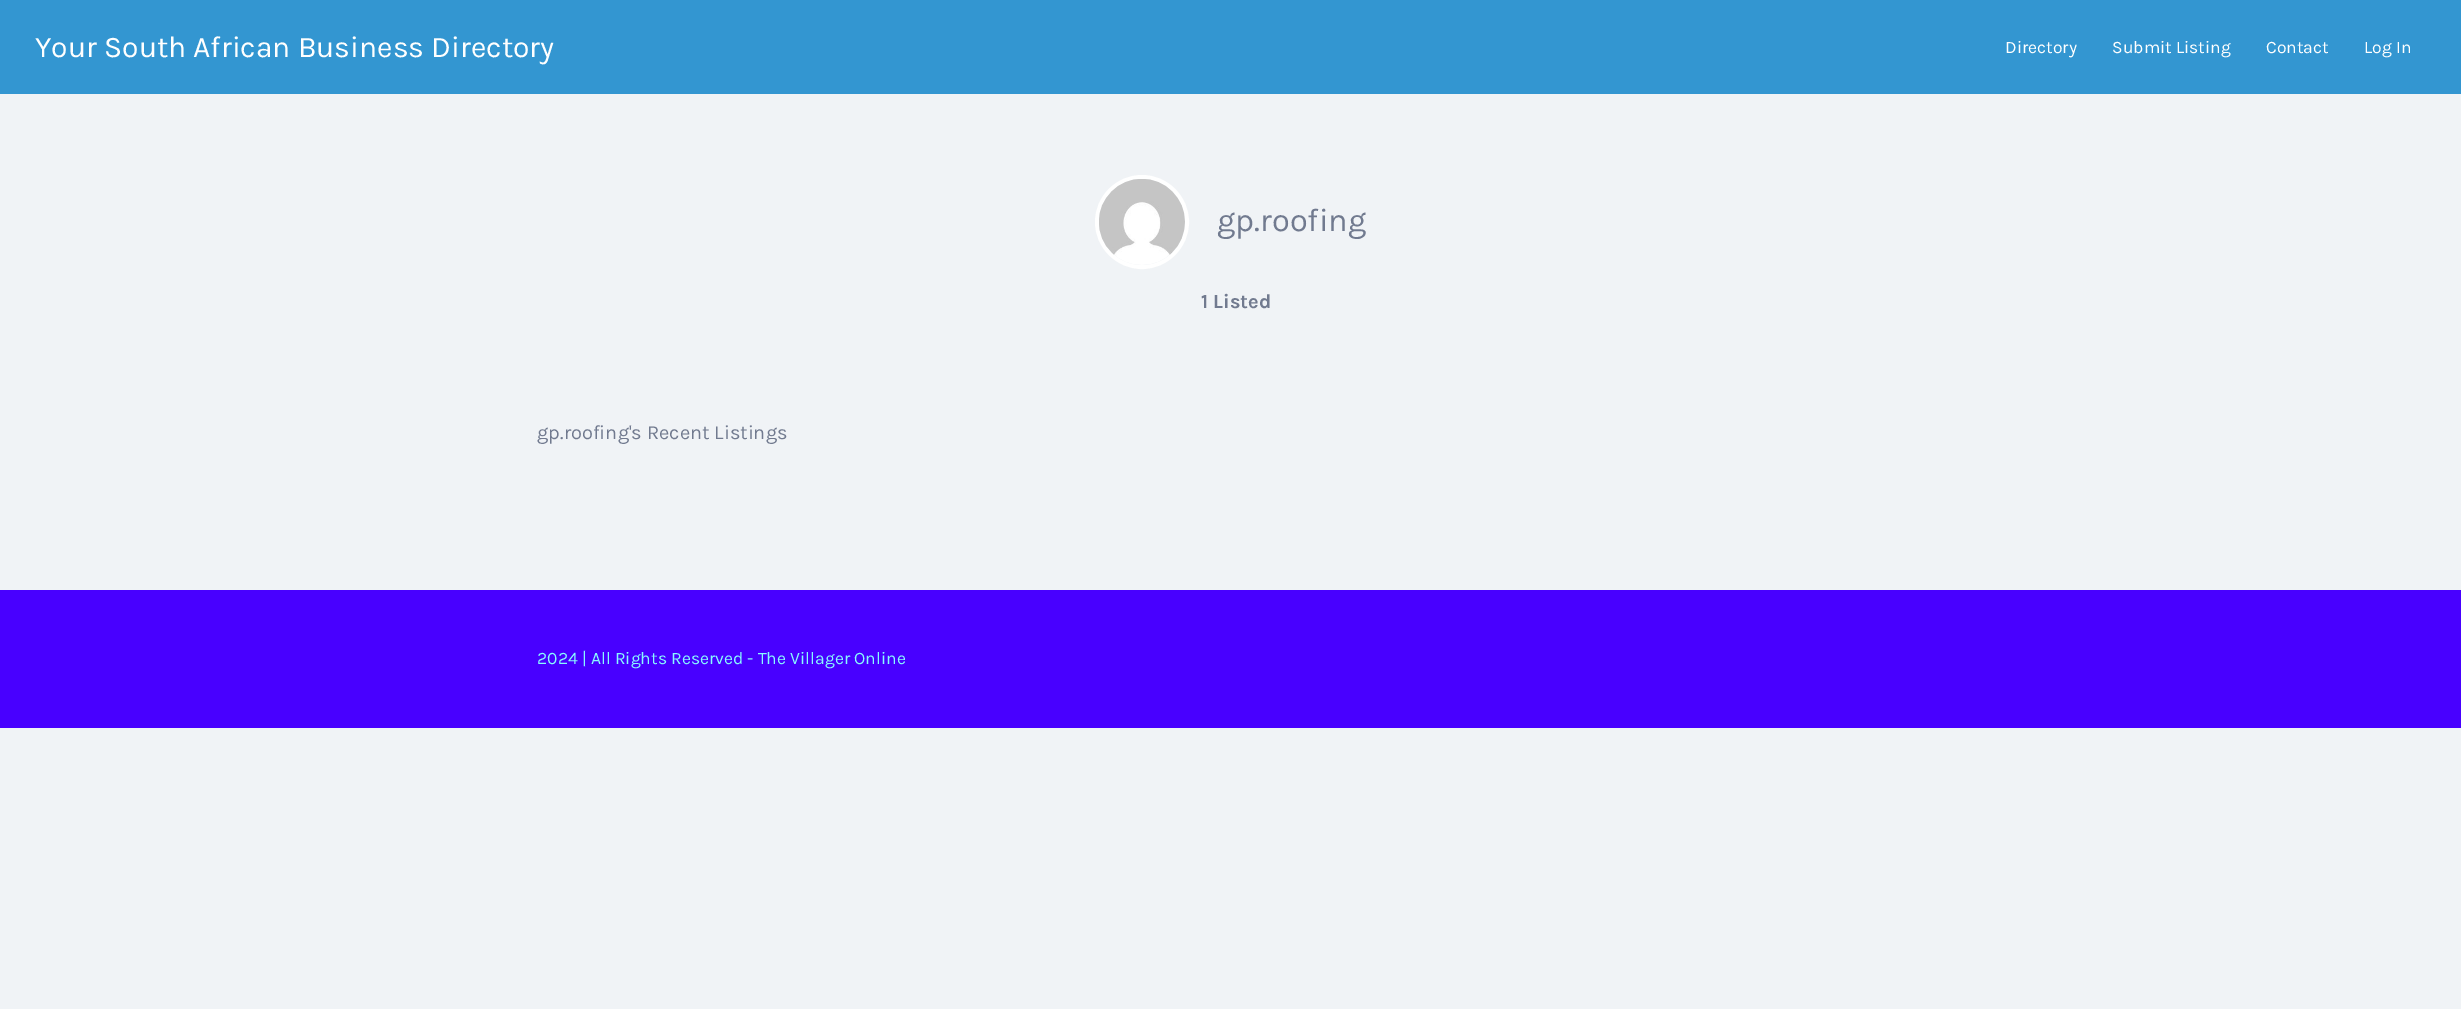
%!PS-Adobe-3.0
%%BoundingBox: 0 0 2461 1009
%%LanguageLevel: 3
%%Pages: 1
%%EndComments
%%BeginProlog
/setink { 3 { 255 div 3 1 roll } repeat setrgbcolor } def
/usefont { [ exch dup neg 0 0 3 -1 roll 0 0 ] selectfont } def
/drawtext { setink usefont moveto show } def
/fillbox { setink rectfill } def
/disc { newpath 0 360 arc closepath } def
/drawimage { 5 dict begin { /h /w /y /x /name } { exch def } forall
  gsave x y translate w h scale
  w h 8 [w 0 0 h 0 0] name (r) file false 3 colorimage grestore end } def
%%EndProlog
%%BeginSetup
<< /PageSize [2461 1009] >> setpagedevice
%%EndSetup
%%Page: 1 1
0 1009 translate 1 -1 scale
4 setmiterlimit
0 0 2461 1009 240 243 246 fillbox
0 0 2461 94 51 150 209 fillbox
(Your South African Business Directory) 35 57 /Karla-Regular 30 255 255 255 drawtext
(Directory) 2005 53 /Karla-Regular 17.5 255 255 255 drawtext
(Submit Listing) 2112 53 /Karla-Regular 17.5 255 255 255 drawtext
(Contact) 2266 53 /Karla-Regular 17.5 255 255 255 drawtext
(Log In) 2364 53 /Karla-Regular 17.5 255 255 255 drawtext
4 setlinewidth
1142 222 45 disc stroke
(assets/img1.rgb) 1099 179 86 86 drawimage
(gp.roofing) 1217 231 /Karla-Regular 32.5 113 122 143 drawtext
(1 Listed) 1201 308 /Karla-Bold 20 113 122 143 drawtext
(gp.roofing's Recent Listings) 537 439 /Karla-Regular 20 113 122 143 drawtext
0 590 2461 138 72 0 255 fillbox
(2024 | All Rights Reserved - The Villager Online) 537 664 /Karla-Regular 17.5 137 249 255 drawtext
showpage
%%EOF
